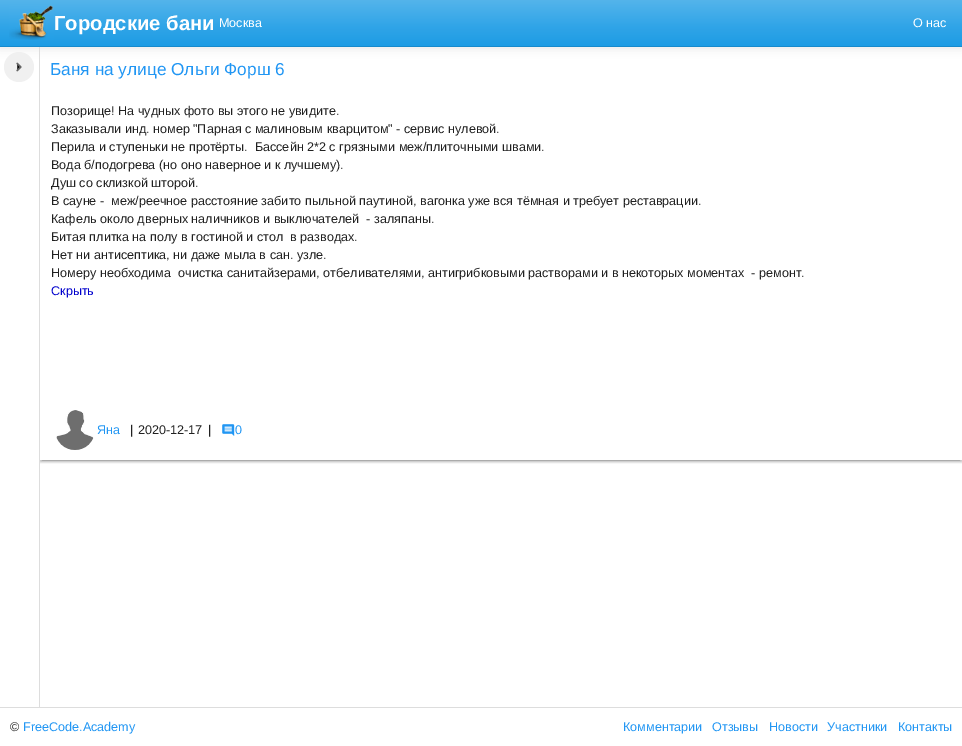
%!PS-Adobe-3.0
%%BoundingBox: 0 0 962 746
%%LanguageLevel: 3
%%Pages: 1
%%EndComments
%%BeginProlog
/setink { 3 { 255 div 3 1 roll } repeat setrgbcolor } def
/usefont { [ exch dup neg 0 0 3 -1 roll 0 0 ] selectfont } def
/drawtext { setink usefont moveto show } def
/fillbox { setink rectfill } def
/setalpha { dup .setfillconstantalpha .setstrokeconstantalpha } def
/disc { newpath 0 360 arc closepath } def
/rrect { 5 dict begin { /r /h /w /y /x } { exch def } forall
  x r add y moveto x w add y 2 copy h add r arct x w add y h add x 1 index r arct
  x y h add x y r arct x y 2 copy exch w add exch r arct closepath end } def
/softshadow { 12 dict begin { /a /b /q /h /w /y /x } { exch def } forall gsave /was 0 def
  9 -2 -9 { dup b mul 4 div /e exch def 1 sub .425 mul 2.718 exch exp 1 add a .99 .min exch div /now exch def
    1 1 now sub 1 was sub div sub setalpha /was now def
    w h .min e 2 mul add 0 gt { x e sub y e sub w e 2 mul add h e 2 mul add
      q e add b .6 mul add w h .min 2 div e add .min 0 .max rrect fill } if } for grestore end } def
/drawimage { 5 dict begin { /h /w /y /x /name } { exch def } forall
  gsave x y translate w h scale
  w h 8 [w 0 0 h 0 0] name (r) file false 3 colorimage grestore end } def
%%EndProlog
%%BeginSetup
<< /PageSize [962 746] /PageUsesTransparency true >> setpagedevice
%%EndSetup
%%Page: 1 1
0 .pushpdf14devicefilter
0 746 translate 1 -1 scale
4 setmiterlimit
0 0 962 746 255 255 255 fillbox
0 0 0 setink
0 1 962 47 0 5 0.1 softshadow
gsave 0 0 moveto 962 0 lineto 962 46 lineto 0 46 lineto closepath clip newpath
<< /ShadingType 2 /ColorSpace /DeviceRGB /Coords [481 0 481 46] /Extend [true true] /Function << /FunctionType 3 /Domain [0 1] /Functions [<< /FunctionType 2 /Domain [0 1] /C0 [0.329 0.706 0.922] /C1 [0.184 0.643 0.906] /N 1 >> << /FunctionType 2 /Domain [0 1] /C0 [0.184 0.643 0.906] /C1 [0.114 0.612 0.898] /N 1 >>] /Bounds [0.6] /Encode [0 1 0 1] >> >> shfill grestore
0 46 962 1 23 138 204 fillbox
(assets/img1.rgb) 9 5 45 35 drawimage
(Городские бани) 54 30 /LiberationSans-Bold 20.25 255 255 255 drawtext
(Москва) 219 27 /LiberationSans-Regular 12.6 255 255 255 drawtext
(О нас) 913 27 /LiberationSans-Regular 12.6 255 255 255 drawtext
gsave
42 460 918 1 rectclip
0 0 0 setink
42 52 918 409 0 0.5 0.12 softshadow
grestore
gsave
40 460 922 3 rectclip
0 0 0 setink
40 49 922 413 0 1 0.14 softshadow
grestore
gsave
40 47 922 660 rectclip
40 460 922 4 rectclip
0 0 0 setink
40 48 922 413 0 2.5 0.2 softshadow
grestore
39 47 1 660 221 221 221 fillbox
240 240 240 setink
19 67 15 disc fill
(assets/img2.rgb) 16 62 6 10 drawimage
(Баня на улице Ольги Форш 6) 50 75 /LiberationSans-Regular 17.25 33 150 243 drawtext
(Позорище! На чудных фото вы этого не увидите.) 51 115 /LiberationSans-Regular 12.6 33 33 33 drawtext
(Заказывали инд. номер "Парная с малиновым кварцитом" - сервис нулевой.) 51 133 /LiberationSans-Regular 12.6 33 33 33 drawtext
(Перила и ступеньки не протёрты.  Бассейн 2*2 с грязными меж/плиточными швами.) 51 151 /LiberationSans-Regular 12.6 33 33 33 drawtext
(Вода б/подогрева \(но оно наверное и к лучшему\).) 51 169 /LiberationSans-Regular 12.6 33 33 33 drawtext
(Душ со склизкой шторой.) 51 187 /LiberationSans-Regular 12.6 33 33 33 drawtext
(В сауне -  меж/реечное расстояние забито пыльной паутиной, вагонка уже вся тёмная и требует реставрации.) 51 205 /LiberationSans-Regular 12.6 33 33 33 drawtext
(Кафель около дверных наличников и выключателей  - заляпаны.) 51 223 /LiberationSans-Regular 12.6 33 33 33 drawtext
(Битая плитка на полу в гостиной и стол  в разводах.) 51 241 /LiberationSans-Regular 12.6 33 33 33 drawtext
(Нет ни антисептика, ни даже мыла в сан. узле.) 51 259 /LiberationSans-Regular 12.6 33 33 33 drawtext
(Номеру необходима  очистка санитайзерами, отбеливателями, антигрибковыми растворами и в некоторых моментах  - ремонт.) 51 277 /LiberationSans-Regular 12.6 33 33 33 drawtext
(Скрыть) 51 295 /LiberationSans-Regular 12.6 0 0 204 drawtext
(assets/img3.rgb) 56 410 38 40 drawimage
(Яна) 97 434 /LiberationSans-Regular 12.6 33 150 243 drawtext
(|) 130 434 /LiberationSans-Regular 12.6 33 33 33 drawtext
(2020-12-17) 138 434 /LiberationSans-Regular 12.6 33 33 33 drawtext
(|) 208 434 /LiberationSans-Regular 12.6 33 33 33 drawtext
(assets/img4.rgb) 222 424 13 12 drawimage
(0) 235 434 /LiberationSans-Regular 12.6 33 150 243 drawtext
0 707 962 1 221 221 221 fillbox
(©) 10 731 /LiberationSans-Regular 12.6 33 33 33 drawtext
(FreeCode.Academy) 23 731 /LiberationSans-Regular 12.6 33 150 243 drawtext
(Комментарии) 623 731 /LiberationSans-Regular 12.6 33 150 243 drawtext
(Отзывы) 712 731 /LiberationSans-Regular 12.6 33 150 243 drawtext
(Новости) 769 731 /LiberationSans-Regular 12.6 33 150 243 drawtext
(Участники) 827 731 /LiberationSans-Regular 12.6 33 150 243 drawtext
(Контакты) 898 731 /LiberationSans-Regular 12.6 33 150 243 drawtext
.poppdf14devicefilter showpage
%%EOF
